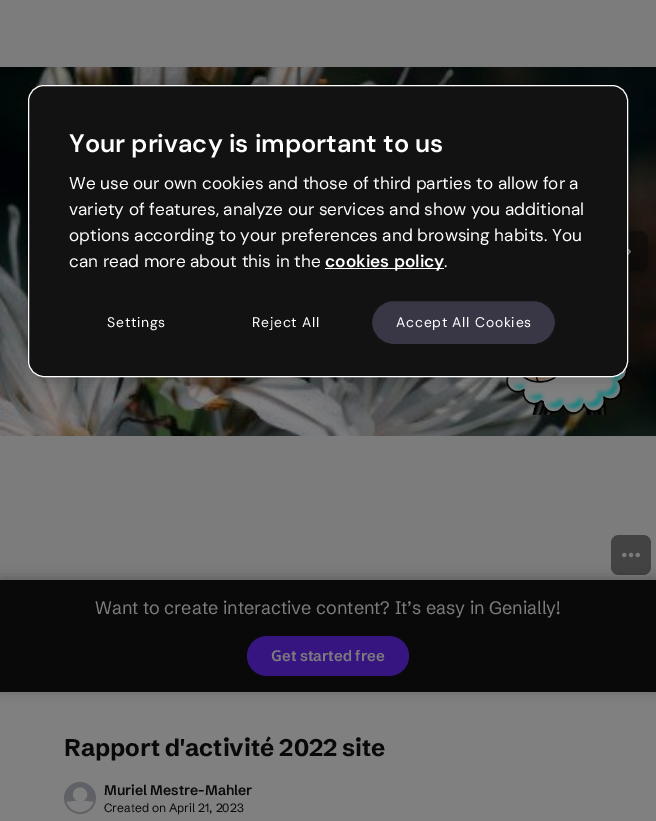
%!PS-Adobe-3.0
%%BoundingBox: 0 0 656 821
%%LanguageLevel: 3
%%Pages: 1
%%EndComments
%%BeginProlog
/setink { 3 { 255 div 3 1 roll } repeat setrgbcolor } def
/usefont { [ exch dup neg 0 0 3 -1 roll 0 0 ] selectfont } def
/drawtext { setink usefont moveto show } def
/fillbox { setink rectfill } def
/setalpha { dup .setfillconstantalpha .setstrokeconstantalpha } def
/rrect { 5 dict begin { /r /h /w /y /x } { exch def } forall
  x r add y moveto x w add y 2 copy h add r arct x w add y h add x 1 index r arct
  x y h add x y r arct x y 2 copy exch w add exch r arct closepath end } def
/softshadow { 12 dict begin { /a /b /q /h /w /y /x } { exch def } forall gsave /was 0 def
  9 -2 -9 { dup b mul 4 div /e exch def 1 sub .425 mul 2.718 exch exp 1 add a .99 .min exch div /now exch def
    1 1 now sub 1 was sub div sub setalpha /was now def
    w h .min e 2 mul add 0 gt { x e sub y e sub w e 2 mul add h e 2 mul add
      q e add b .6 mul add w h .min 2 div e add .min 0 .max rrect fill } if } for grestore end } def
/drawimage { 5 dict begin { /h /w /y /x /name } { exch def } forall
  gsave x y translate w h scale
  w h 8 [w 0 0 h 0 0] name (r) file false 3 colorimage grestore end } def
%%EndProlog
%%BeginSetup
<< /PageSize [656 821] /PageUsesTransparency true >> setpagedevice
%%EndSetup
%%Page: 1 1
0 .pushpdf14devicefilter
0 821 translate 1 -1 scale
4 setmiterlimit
0 0 656 821 128 128 128 fillbox
0 0 656 580 124 124 124 fillbox
(assets/img1.rgb) 0 67 656 369 drawimage
(assets/img2.rgb) 505 366 123 49 drawimage
0.5 setalpha
9 9 9 setink
608 231 40 40 8 rrect fill
1 setalpha
(assets/img3.rgb) 628 248 3 7 drawimage
0 0 0 setink
28 85 600 292 16 9 0.2 softshadow
18 18 18 setink
28.5 85.5 599 291 15.5 rrect gsave fill grestore
255 255 255 setink
stroke
(Your privacy is important to us) 69 152 /DMSans-SemiBold 25.25 255 255 255 drawtext
(We use our own cookies and those of third parties to allow for a) 69 189 /DMSans-Regular 17.25 255 255 255 drawtext
(variety of features, analyze our services and show you additional) 69 215 /DMSans-Regular 17.25 255 255 255 drawtext
(options according to your preferences and browsing habits. You) 69 241 /DMSans-Regular 17.25 255 255 255 drawtext
(can read more about this in the) 69 267 /DMSans-Regular 17.25 255 255 255 drawtext
325 268 119 1 255 255 255 fillbox
(cookies policy) 325 267 /DMSans-SemiBold 17.25 255 255 255 drawtext
(.) 444 267 /DMSans-Regular 17.25 255 255 255 drawtext
/DMSans-Regular 14 usefont
107 327 moveto 0.75 0 (Settings) ashow
252 327 moveto 0.75 0 (Reject All) ashow
57 54 69 setink
371.5 300.5 184 44 22 rrect gsave fill grestore
18 18 18 setink
stroke
255 255 255 setink
396 327 moveto 0.75 0 (Accept All Cookies) ashow
67 67 67 setink
611 535 40 40 8 rrect fill
(assets/img4.rgb) 622 552 18 6 drawimage
9 9 9 setink
0 578 656 112 0 6.5 0.3 softshadow
0 580 656 112 9 9 9 fillbox
(Want to create interactive content? It’s easy in Genially!) 95 614 /SchibstedGrotesk-Regular 18 125 124 126 drawtext
54 21 128 setink
247 636 162 40 20 rrect fill
(G) 271 661 /NotoSans-SemiBold 15 125 124 126 drawtext
(et started free) 282 661 /SchibstedGrotesk-SemiBold 15 125 124 126 drawtext
(Rapport d'activité 2022 site) 64 756 /SchibstedGrotesk-Bold 24 9 9 9 drawtext
(assets/img5.rgb) 64 782 32 32 drawimage
(Muriel Mestre-Mahler) 104 795 /SchibstedGrotesk-SemiBold 14 9 9 9 drawtext
(Created on April 21, 2023) 104 812 /SchibstedGrotesk-Regular 12 9 9 9 drawtext
.poppdf14devicefilter showpage
%%EOF
